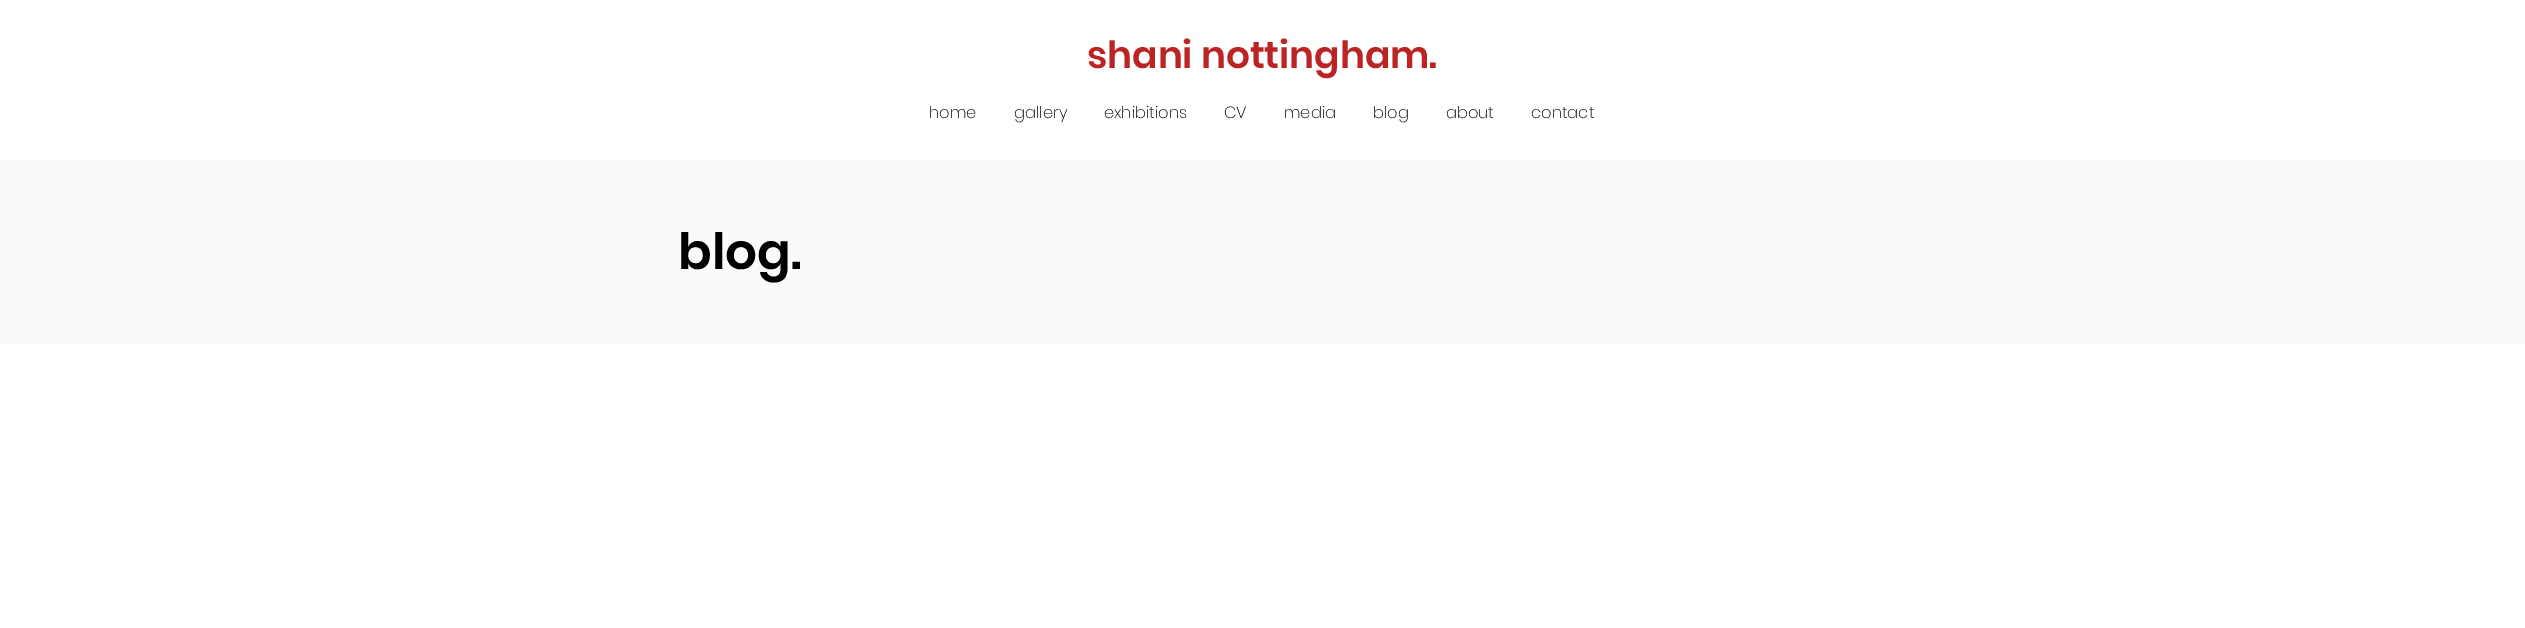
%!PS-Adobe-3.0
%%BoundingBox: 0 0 2525 628
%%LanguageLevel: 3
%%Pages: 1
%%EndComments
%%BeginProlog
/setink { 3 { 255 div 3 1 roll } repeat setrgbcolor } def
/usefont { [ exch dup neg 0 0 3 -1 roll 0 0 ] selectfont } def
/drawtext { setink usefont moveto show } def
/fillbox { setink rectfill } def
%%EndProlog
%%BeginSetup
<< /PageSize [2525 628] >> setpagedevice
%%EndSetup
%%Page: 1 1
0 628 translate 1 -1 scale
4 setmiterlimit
0 0 2525 628 255 255 255 fillbox
(shani nottingham.) 1087 68 /Poppins-SemiBold 37.5 187 36 35 drawtext
(home) 929 118 /Poppins-ExtraLight 16.25 0 0 0 drawtext
(gallery) 1014 118 /Poppins-ExtraLight 16.25 0 0 0 drawtext
(exhibitions) 1104 118 /Poppins-ExtraLight 16.25 0 0 0 drawtext
(CV) 1224 118 /Poppins-ExtraLight 16.25 0 0 0 drawtext
(media) 1284 118 /Poppins-ExtraLight 16.25 0 0 0 drawtext
(blog) 1373 118 /Poppins-ExtraLight 16.25 0 0 0 drawtext
(about) 1446 118 /Poppins-ExtraLight 16.25 0 0 0 drawtext
(contact) 1531 118 /Poppins-ExtraLight 16.25 0 0 0 drawtext
0 160 2525 184 250 250 250 fillbox
(blog.) 678 269 /Poppins-SemiBold 50 0 0 0 drawtext
showpage
%%EOF
